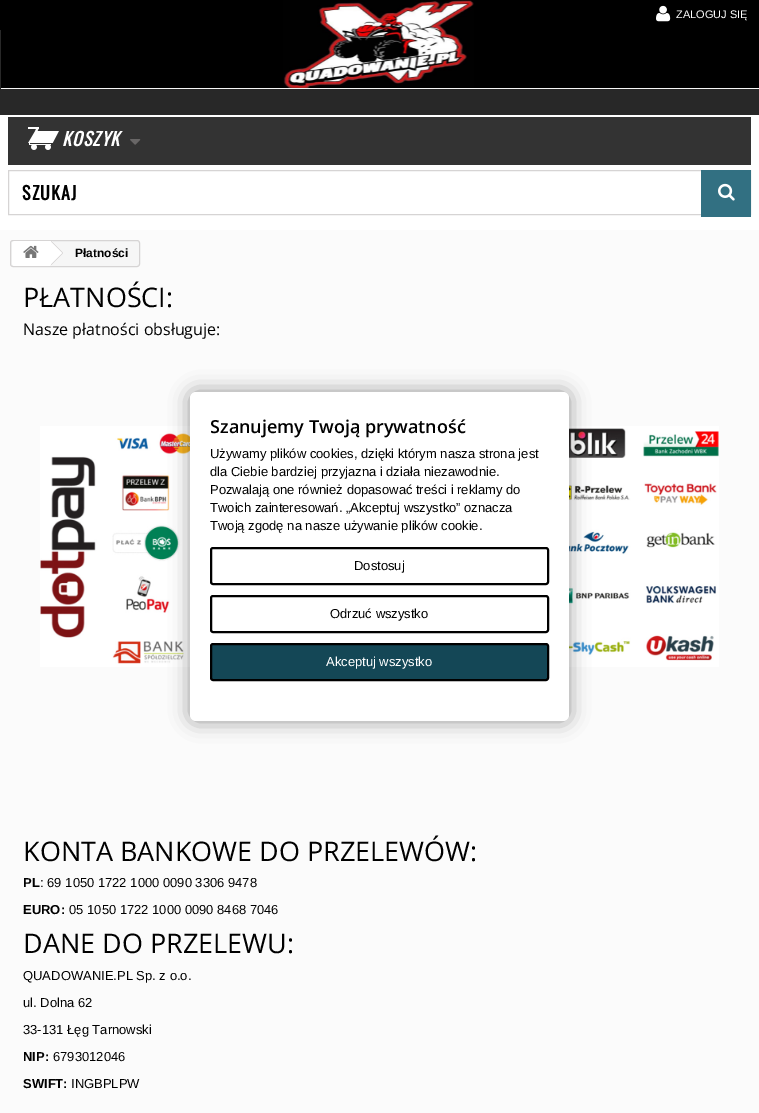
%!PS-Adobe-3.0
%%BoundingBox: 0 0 759 1113
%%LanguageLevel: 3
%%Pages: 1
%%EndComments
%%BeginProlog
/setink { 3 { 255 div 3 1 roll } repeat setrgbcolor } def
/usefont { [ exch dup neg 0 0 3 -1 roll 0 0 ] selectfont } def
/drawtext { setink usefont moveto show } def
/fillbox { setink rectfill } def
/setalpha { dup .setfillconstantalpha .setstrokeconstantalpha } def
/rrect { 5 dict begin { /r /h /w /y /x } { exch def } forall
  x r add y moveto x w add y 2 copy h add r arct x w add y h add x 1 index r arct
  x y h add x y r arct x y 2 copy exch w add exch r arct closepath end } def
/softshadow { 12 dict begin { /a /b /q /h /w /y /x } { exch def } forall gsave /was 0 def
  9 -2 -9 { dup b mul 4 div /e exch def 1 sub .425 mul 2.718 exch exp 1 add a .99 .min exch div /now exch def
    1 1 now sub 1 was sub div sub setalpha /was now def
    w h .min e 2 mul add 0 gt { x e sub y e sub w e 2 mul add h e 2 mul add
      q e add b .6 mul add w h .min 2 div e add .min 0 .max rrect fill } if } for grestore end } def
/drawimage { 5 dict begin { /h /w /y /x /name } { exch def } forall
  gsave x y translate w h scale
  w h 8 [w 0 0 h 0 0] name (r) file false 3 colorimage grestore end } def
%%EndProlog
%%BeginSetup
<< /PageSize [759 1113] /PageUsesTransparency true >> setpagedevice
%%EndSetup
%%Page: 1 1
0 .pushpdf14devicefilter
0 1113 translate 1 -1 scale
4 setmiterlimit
0 0 759 1113 40 40 40 fillbox
0 115 759 115 255 255 255 fillbox
0 0 759 30 0 0 0 fillbox
1 30 758 58 0 0 0 fillbox
1 88 758 1 246 246 246 fillbox
(assets/img1.rgb) 283 0 191 88 drawimage
(assets/img2.rgb) 656 5 15 17 drawimage
(ZALOGUJ SIĘ) 676 18 /LiberationSans-Regular 11 255 255 255 drawtext
8 117 743 48 51 51 51 fillbox
(assets/img3.rgb) 28 127 31 23 drawimage
/Oswald-BoldItalic 18 usefont
255 255 255 setink
62 146 moveto 1 0 (KOSZYK) ashow
(assets/img4.rgb) 130 139 11 6 drawimage
214 212 212 setink
8.5 170.5 742 44 rectstroke
/Oswald-Bold 18 usefont
0 0 0 setink
22 200 moveto 1 0 (SZUKAJ) ashow
701 170 50 47 50 112 130 fillbox
(assets/img5.rgb) 718 183 17 18 drawimage
0 230 759 883 251 251 251 fillbox
246 246 246 setink
10.5 240.5 129 26 2.5 rrect gsave fill grestore
214 212 212 setink
stroke
255 255 255 setink
15 241 moveto 50 241 lineto 50 266 lineto 15 266 lineto 13.5 266 12 264.5 12 263 curveto 12 244 lineto 12 242.5 13.5 241 15 241 curveto closepath fill
(assets/img6.rgb) 23 245 16 13 drawimage
52.5 241.5 moveto 62.5 251.5 lineto 63 252.5 63 253.5 62.5 254.5 curveto 52.5 264.5 lineto 51.5 265 50.5 265 49.5 264.5 curveto 39.5 254.5 lineto 39 253.5 39 252.5 39.5 251.5 curveto 49.5 241.5 lineto 50.5 241 51.5 241 52.5 241.5 curveto closepath fill
214 212 212 setink
51.5 241 moveto 63 252.5 lineto 62.5 253 lineto 51 241.5 lineto closepath 62.5 253 moveto 63 253.5 lineto 51.5 265 lineto 51 264.5 lineto closepath fill
(Płatności) 75 257 /LiberationSans-Bold 12 0 0 0 drawtext
(PŁATNOŚCI:) 23 307 /OpenSans-Regular 27 0 0 0 drawtext
(Nasze płatności obsługuje:) 23 335 /OpenSans-Regular 16 0 0 0 drawtext
(assets/img7.rgb) 40 426 679 241 drawimage
(KONTA BANKOWE DO PRZELEWÓW:) 23 861 /OpenSans-Regular 27 0 0 0 drawtext
(PL) 23 887 /LiberationSans-Bold 13 0 0 0 drawtext
(: 69 1050 1722 1000 0090 3306 9478) 40 887 /LiberationSans-Regular 13 0 0 0 drawtext
(EURO:) 23 914 /LiberationSans-Bold 13 0 0 0 drawtext
(05 1050 1722 1000 0090 8468 7046) 69 914 /LiberationSans-Regular 13 0 0 0 drawtext
(DANE DO PRZELEWU:) 23 953 /OpenSans-Regular 27 0 0 0 drawtext
(QUADOWANIE.PL Sp. z o.o.) 23 980 /LiberationSans-Regular 13 0 0 0 drawtext
(ul. Dolna 62) 23 1007 /LiberationSans-Regular 13 0 0 0 drawtext
(33-131 Łęg Tarnowski) 23 1034 /LiberationSans-Regular 13 0 0 0 drawtext
(NIP:) 23 1061 /LiberationSans-Bold 13 0 0 0 drawtext
(6793012046) 53 1061 /LiberationSans-Regular 13 0 0 0 drawtext
(SWIFT:) 23 1088 /LiberationSans-Bold 13 0 0 0 drawtext
(INGBPLPW) 71 1088 /LiberationSans-Regular 13 0 0 0 drawtext
190 392 379 329 6 10 0.4 softshadow
255 255 255 setink
190 392 379 329 6 rrect fill
(Szanujemy Twoją prywatność) 210 433 /OpenSans-SemiBold 18 0 0 0 drawtext
(Używamy plików cookies, dzięki którym nasza strona jest) 210 458 /LiberationSans-Regular 13 0 0 0 drawtext
(dla Ciebie bardziej przyjazna i działa niezawodnie.) 210 476 /LiberationSans-Regular 13 0 0 0 drawtext
(Pozwalają one również dopasować treści i reklamy do) 210 494 /LiberationSans-Regular 13 0 0 0 drawtext
(Twoich zainteresowań. „Akceptuj wszystko” oznacza) 210 512 /LiberationSans-Regular 13 0 0 0 drawtext
(Twoją zgodę na nasze używanie plików cookie.) 210 530 /LiberationSans-Regular 13 0 0 0 drawtext
2 setlinewidth
211 548 337 36 2 rrect stroke
(Dostosuj) 354 570 /LiberationSans-Regular 13 0 0 0 drawtext
211 596 337 36 2 rrect stroke
(Odrzuć wszystko) 330 618 /LiberationSans-Regular 13 0 0 0 drawtext
20 71 86 setink
211 644 337 36 2 rrect gsave fill grestore
0 0 0 setink
stroke
(Akceptuj wszystko) 326 666 /LiberationSans-Regular 13 255 255 255 drawtext
.poppdf14devicefilter showpage
%%EOF
